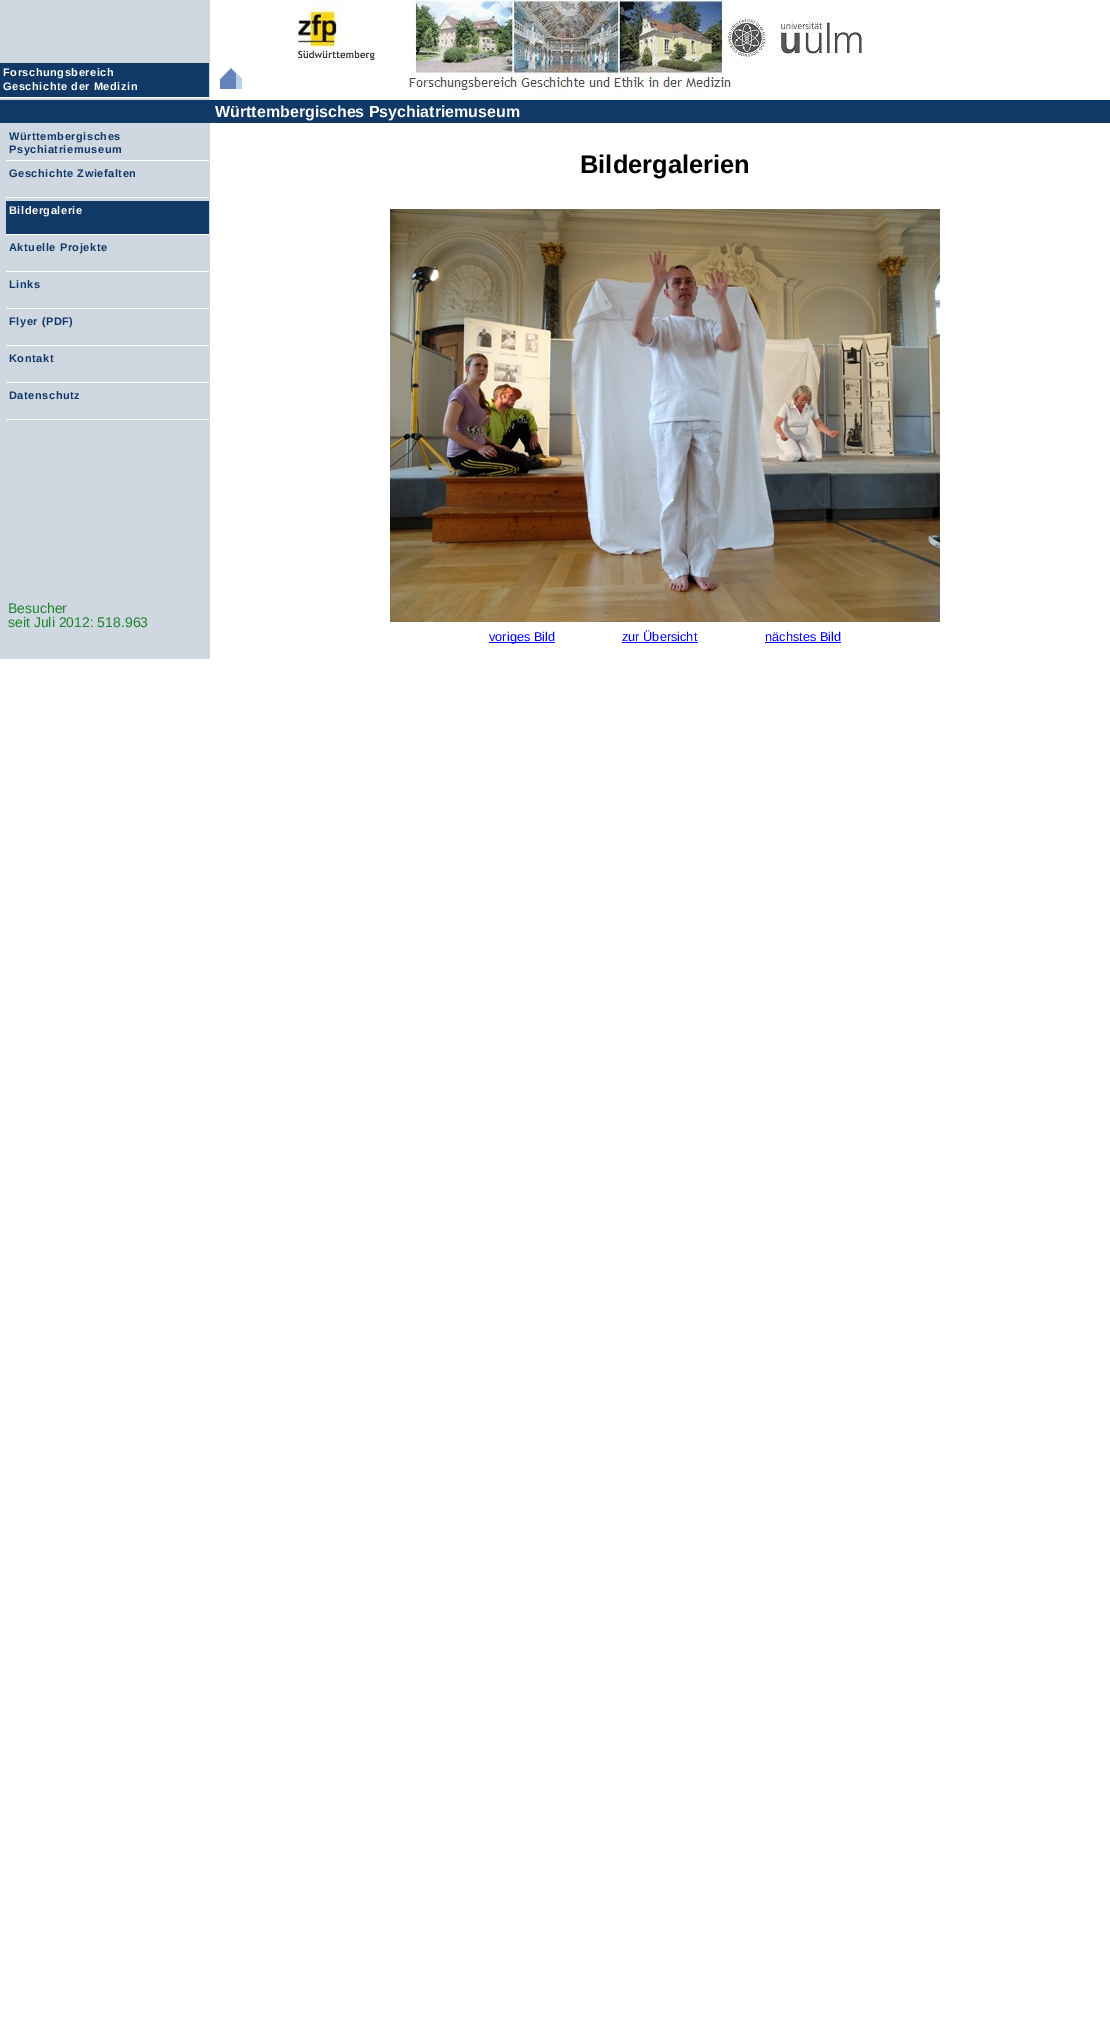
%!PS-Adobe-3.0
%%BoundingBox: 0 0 1110 2022
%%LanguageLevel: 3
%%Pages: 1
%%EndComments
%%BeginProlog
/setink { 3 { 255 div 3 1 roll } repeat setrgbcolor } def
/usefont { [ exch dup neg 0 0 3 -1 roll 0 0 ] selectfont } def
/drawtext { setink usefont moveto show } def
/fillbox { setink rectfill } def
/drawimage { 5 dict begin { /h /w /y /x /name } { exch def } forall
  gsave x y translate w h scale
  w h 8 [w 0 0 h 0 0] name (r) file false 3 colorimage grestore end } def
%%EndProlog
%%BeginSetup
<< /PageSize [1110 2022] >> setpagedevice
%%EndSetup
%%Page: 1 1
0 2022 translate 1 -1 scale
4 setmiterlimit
0 0 1110 2022 255 255 255 fillbox
0 0 210 100 207 215 225 fillbox
0 63 209 34 17 57 104 fillbox
0 97 209 1 255 255 255 fillbox
/LiberationSans-Bold 11 usefont
3 76 moveto 0.55 0 (Forschungsbereich) ashow
3 90 moveto 0.55 0 (Geschichte der Medizin) ashow
(assets/img1.rgb) 220 67 22 22 drawimage
(assets/img2.rgb) 295 0 568 96 drawimage
0 100 1110 23 17 57 104 fillbox
(Württembergisches Psychiatriemuseum) 215 117 /LiberationSans-Bold 16 255 255 255 drawtext
0 123 210 536 207 215 225 fillbox
6 160 203 1 255 255 255 fillbox
/LiberationSans-Bold 11 usefont
17 57 104 setink
9 140 moveto 0.55 0 (Württembergisches) ashow
9 153 moveto 0.55 0 (Psychiatriemuseum) ashow
6 197 203 1 255 255 255 fillbox
17 57 104 setink
9 177 moveto 0.55 0 (Geschichte Zwiefalten) ashow
6 201 203 33 17 57 104 fillbox
6 234 203 1 255 255 255 fillbox
9 214 moveto 0.55 0 (Bildergalerie) ashow
6 271 203 1 255 255 255 fillbox
17 57 104 setink
9 251 moveto 0.55 0 (Aktuelle Projekte) ashow
6 308 203 1 255 255 255 fillbox
17 57 104 setink
9 288 moveto 0.55 0 (Links) ashow
6 345 203 1 255 255 255 fillbox
17 57 104 setink
9 325 moveto 0.55 0 (Flyer \(PDF\)) ashow
6 382 203 1 255 255 255 fillbox
17 57 104 setink
9 362 moveto 0.55 0 (Kontakt) ashow
6 419 203 1 255 255 255 fillbox
17 57 104 setink
9 399 moveto 0.55 0 (Datenschutz) ashow
(Besucher) 8 613 /LiberationSans-Regular 14 32 132 47 drawtext
(seit Juli 2012: 518.963) 8 627 /LiberationSans-Regular 14 32 132 47 drawtext
(Bildergalerien) 580 173 /LiberationSans-Bold 25.5 0 0 0 drawtext
(assets/img3.rgb) 390 209 550 413 drawimage
489 642 66 1 0 0 255 fillbox
(voriges Bild) 489 641 /LiberationSans-Regular 12.75 0 0 255 drawtext
(zur Übersicht) 622 641 /LiberationSans-Regular 12.75 0 0 255 drawtext
622 642 76 1 0 0 255 fillbox
(nächstes Bild) 765 641 /LiberationSans-Regular 12.75 0 0 255 drawtext
765 642 76 1 0 0 255 fillbox
showpage
%%EOF
